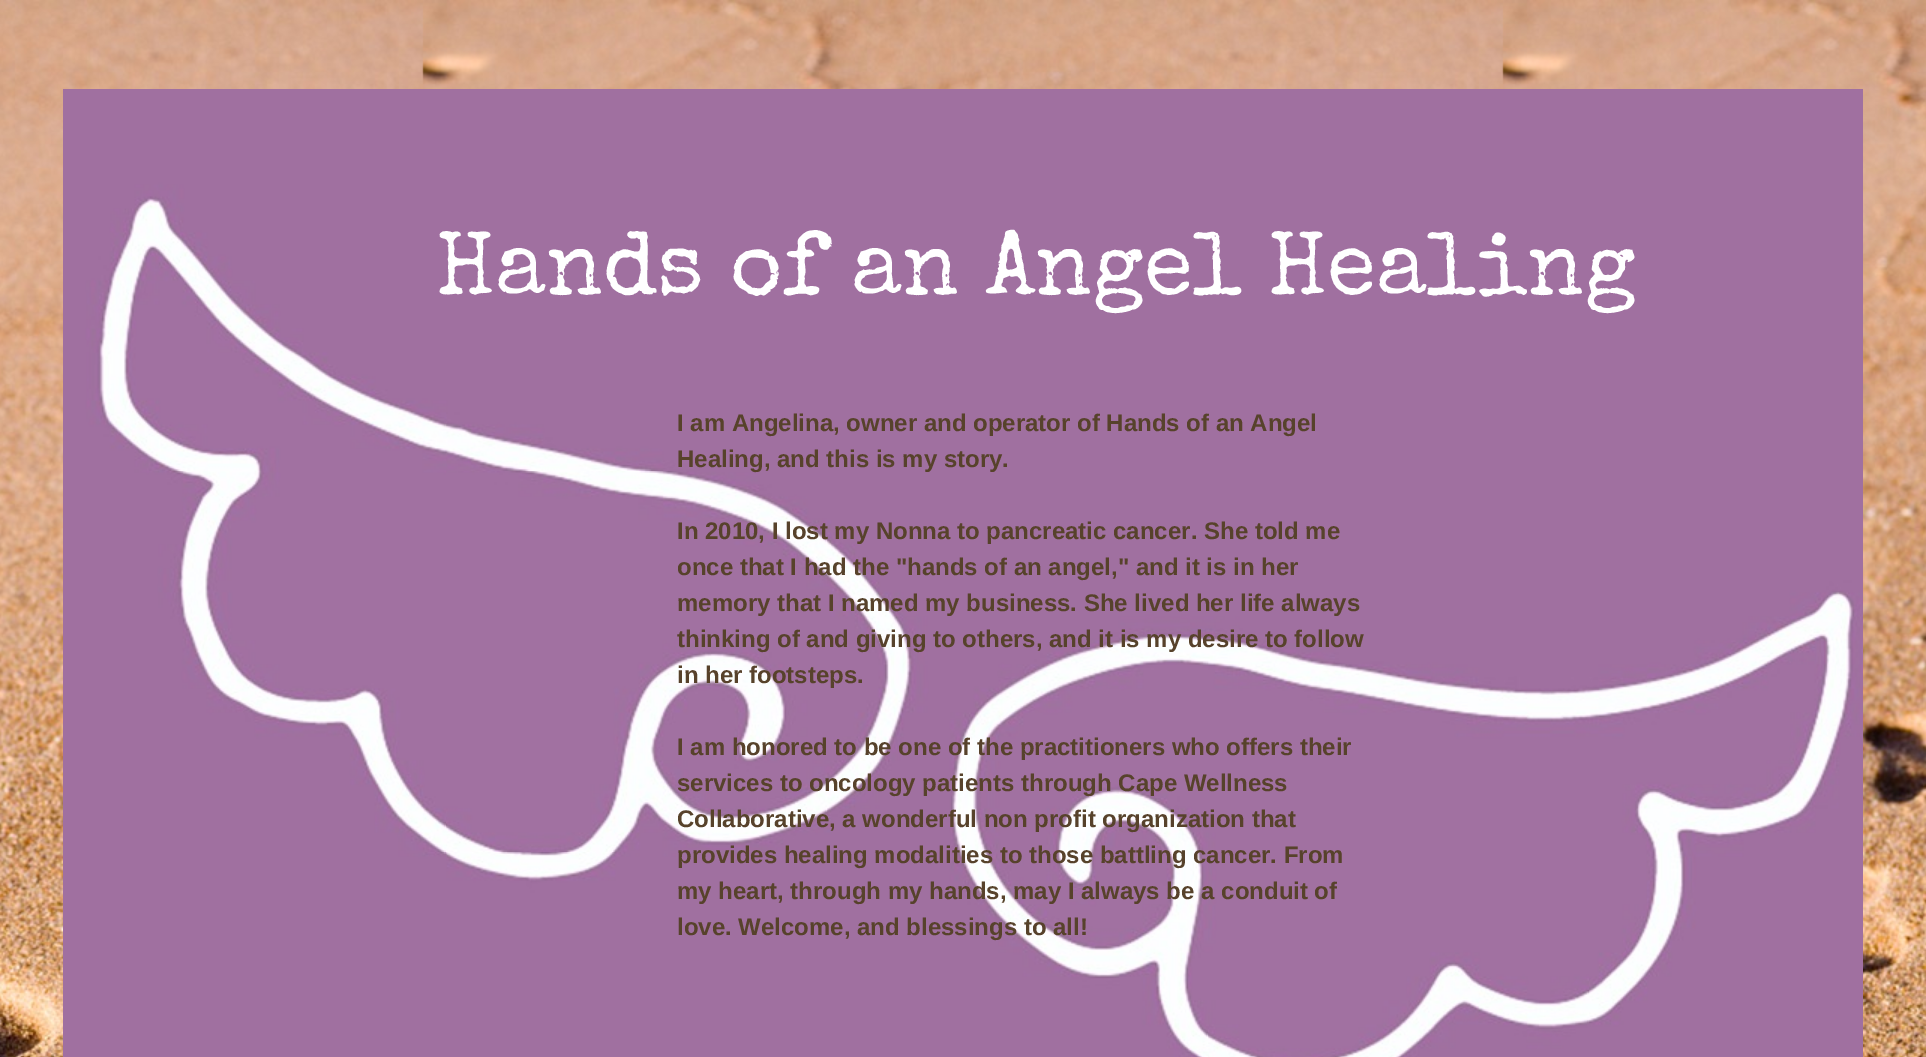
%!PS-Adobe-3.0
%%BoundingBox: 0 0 1926 1057
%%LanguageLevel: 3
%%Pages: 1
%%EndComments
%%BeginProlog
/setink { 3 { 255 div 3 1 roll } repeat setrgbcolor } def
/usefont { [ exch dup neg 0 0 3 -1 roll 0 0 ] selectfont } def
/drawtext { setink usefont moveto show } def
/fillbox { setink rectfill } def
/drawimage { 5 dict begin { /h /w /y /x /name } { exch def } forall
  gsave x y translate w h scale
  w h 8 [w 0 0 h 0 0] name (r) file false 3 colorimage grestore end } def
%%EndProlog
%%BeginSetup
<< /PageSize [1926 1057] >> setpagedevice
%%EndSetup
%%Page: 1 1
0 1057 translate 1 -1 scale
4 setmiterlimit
0 0 1926 1057 255 255 255 fillbox
(assets/img1.rgb) 0 0 1926 1057 drawimage
(assets/img2.rgb) 63 89 1800 968 drawimage
(Hands of an Angel Healing) 436 293 /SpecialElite-Regular 90 255 255 255 drawtext
(I am Angelina, owner and operator of Hands of an Angel) 677 431 /LiberationSans-Bold 24 87 66 43 drawtext
(Healing, and this is my story.) 677 467 /LiberationSans-Bold 24 87 66 43 drawtext
(In 2010, I lost my Nonna to pancreatic cancer. She told me) 677 539 /LiberationSans-Bold 24 87 66 43 drawtext
(once that I had the "hands of an angel," and it is in her) 677 575 /LiberationSans-Bold 24 87 66 43 drawtext
(memory that I named my business. She lived her life always) 677 611 /LiberationSans-Bold 24 87 66 43 drawtext
(thinking of and giving to others, and it is my desire to follow) 677 647 /LiberationSans-Bold 24 87 66 43 drawtext
(in her footsteps.) 677 683 /LiberationSans-Bold 24 87 66 43 drawtext
(I am honored to be one of the practitioners who offers their) 677 755 /LiberationSans-Bold 24 87 66 43 drawtext
(services to oncology patients through Cape Wellness) 677 791 /LiberationSans-Bold 24 87 66 43 drawtext
(Collaborative, a wonderful non profit organization that) 677 827 /LiberationSans-Bold 24 87 66 43 drawtext
(provides healing modalities to those battling cancer. From) 677 863 /LiberationSans-Bold 24 87 66 43 drawtext
(my heart, through my hands, may I always be a conduit of) 677 899 /LiberationSans-Bold 24 87 66 43 drawtext
(love. Welcome, and blessings to all!) 677 935 /LiberationSans-Bold 24 87 66 43 drawtext
showpage
%%EOF
